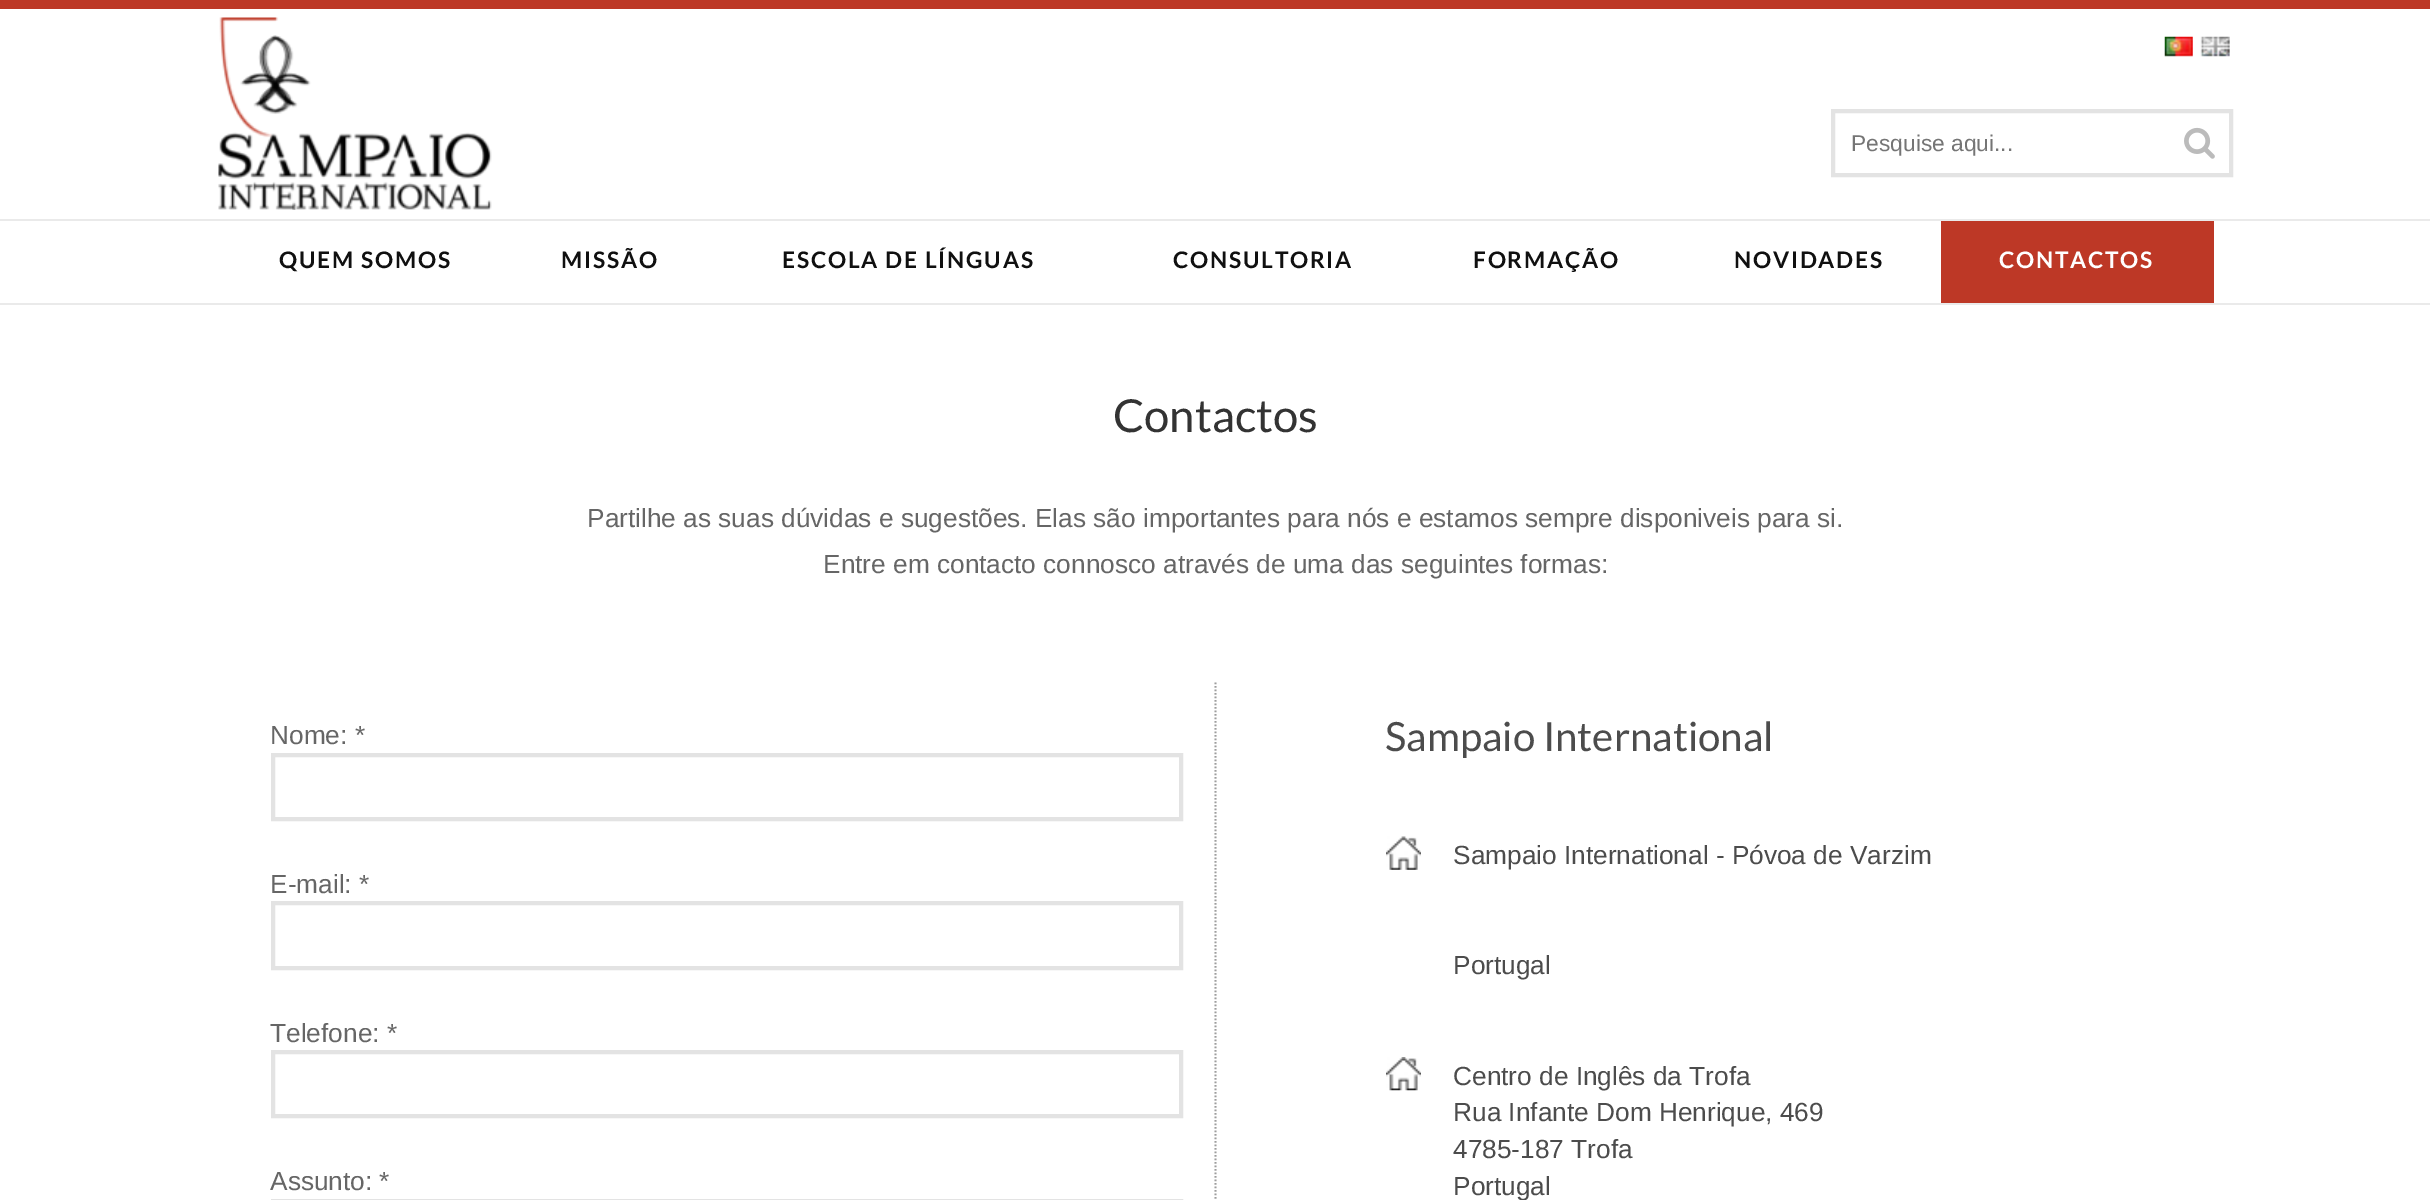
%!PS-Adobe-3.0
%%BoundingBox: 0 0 2430 1200
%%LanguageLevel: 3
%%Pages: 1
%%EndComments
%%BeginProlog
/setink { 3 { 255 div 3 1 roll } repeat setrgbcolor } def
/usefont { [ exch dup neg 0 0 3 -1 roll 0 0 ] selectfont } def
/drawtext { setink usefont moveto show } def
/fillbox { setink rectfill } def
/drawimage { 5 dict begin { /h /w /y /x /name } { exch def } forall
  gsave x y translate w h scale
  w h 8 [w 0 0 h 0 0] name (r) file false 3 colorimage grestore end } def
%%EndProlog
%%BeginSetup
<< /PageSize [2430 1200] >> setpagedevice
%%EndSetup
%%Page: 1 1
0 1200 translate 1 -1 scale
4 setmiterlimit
0 0 2430 1200 255 255 255 fillbox
0 0 2430 9 189 56 38 fillbox
(assets/img1.rgb) 218 17 274 193 drawimage
(assets/img2.rgb) 2164 36 29 21 drawimage
(assets/img3.rgb) 2200 36 30 21 drawimage
227 227 227 setink
4 setlinewidth
1833 111 398 64 rectstroke
(Pesquise aqui...) 1851 151 /LiberationSans-Regular 22.75 117 117 117 drawtext
(assets/img4.rgb) 2184 127 31 32 drawimage
0 219 2430 2 234 234 234 fillbox
/Lato-Bold 22.75 usefont
16 16 16 setink
279 268 moveto 1.75 0 (QUEM SOMOS) ashow
561 268 moveto 1.75 0 (MISSÃO) ashow
782 268 moveto 1.75 0 (ESCOLA DE LÍNGUAS) ashow
1173 268 moveto 1.75 0 (CONSULTORIA) ashow
1473 268 moveto 1.75 0 (FORMAÇÃO) ashow
1734 268 moveto 1.75 0 (NOVIDADES) ashow
1941 221 273 82 189 56 38 fillbox
255 255 255 setink
1999 268 moveto 1.75 0 (CONTACTOS) ashow
0 303 2430 2 234 234 234 fillbox
(Contactos) 1113 432 /Lato-Regular 45.5 51 51 51 drawtext
(Partilhe as suas dúvidas e sugestões. Elas são importantes para nós e estamos sempre disponiveis para si.) 587 527 /LiberationSans-Regular 26.25 102 102 102 drawtext
(Entre em contacto connosco através de uma das seguintes formas:) 823 573 /LiberationSans-Regular 26.25 102 102 102 drawtext
157 157 157 setink
1.8 setlinewidth
[1.75 1.75] 0 setdash
1215.5 682.5 moveto 1215.5 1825 lineto stroke
(Nome: *) 270 744 /LiberationSans-Regular 26.25 102 102 102 drawtext
227 227 227 setink
4 setlinewidth
[] 0 setdash
273 755 908 64 rectstroke
(E-mail: *) 270 893 /LiberationSans-Regular 26.25 102 102 102 drawtext
227 227 227 setink
273 903 908 65 rectstroke
(Telefone: *) 270 1042 /LiberationSans-Regular 26.25 102 102 102 drawtext
227 227 227 setink
273 1052 908 64 rectstroke
(Assunto: *) 270 1190 /LiberationSans-Regular 26.25 102 102 102 drawtext
227 227 227 setink
273 1201 908 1 rectstroke
(Sampaio International) 1385 751 /Lato-Regular 40.25 76 76 76 drawtext
(assets/img5.rgb) 1386 836 35 34 drawimage
(Sampaio International - Póvoa de Varzim) 1453 864 /LiberationSans-Regular 26.25 76 76 76 drawtext
(Portugal) 1453 974 /LiberationSans-Regular 26.25 76 76 76 drawtext
(assets/img6.rgb) 1386 1057 35 34 drawimage
(Centro de Inglês da Trofa) 1453 1085 /LiberationSans-Regular 26.25 76 76 76 drawtext
(Rua Infante Dom Henrique, 469) 1453 1121 /LiberationSans-Regular 26.25 76 76 76 drawtext
(4785-187 Trofa) 1453 1158 /LiberationSans-Regular 26.25 76 76 76 drawtext
(Portugal) 1453 1195 /LiberationSans-Regular 26.25 76 76 76 drawtext
showpage
%%EOF
